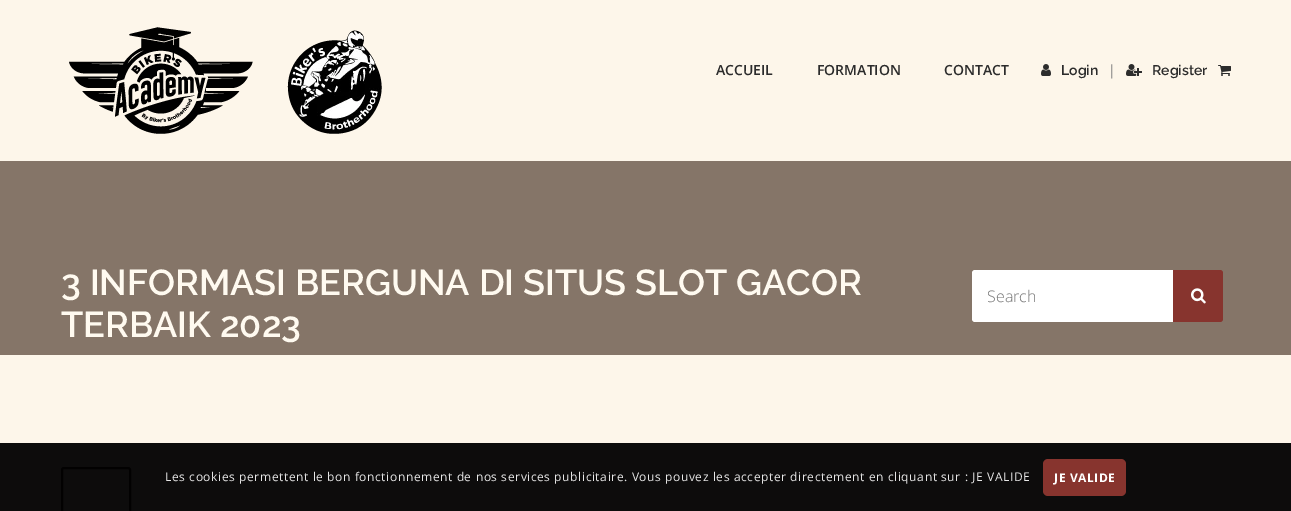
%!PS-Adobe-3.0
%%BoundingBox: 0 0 1291 511
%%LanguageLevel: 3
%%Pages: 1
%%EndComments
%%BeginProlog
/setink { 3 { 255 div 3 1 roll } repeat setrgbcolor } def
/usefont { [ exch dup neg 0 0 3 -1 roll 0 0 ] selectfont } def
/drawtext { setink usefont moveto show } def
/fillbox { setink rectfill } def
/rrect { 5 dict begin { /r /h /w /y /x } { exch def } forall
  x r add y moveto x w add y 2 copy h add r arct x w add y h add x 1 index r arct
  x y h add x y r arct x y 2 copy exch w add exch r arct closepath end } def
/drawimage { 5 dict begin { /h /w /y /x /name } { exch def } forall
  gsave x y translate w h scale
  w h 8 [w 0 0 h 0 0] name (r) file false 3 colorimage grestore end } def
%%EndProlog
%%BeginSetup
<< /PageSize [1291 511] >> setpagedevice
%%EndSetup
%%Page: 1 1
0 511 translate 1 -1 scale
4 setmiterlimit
0 0 1291 511 253 246 234 fillbox
0 443 1291 68 13 12 12 fillbox
(assets/img1.rgb) 69 27 313 107 drawimage
(ACCUEIL) 716 75 /OpenSans-SemiBold 14 44 44 44 drawtext
(FORMATION) 817 75 /OpenSans-SemiBold 14 44 44 44 drawtext
(CONTACT) 944 75 /OpenSans-SemiBold 14 44 44 44 drawtext
(assets/img2.rgb) 1041 64 10 12 drawimage
(Login) 1061 75 /Raleway-SemiBold 14 44 44 44 drawtext
(|) 1108 75 /OpenSans-Regular 14 128 128 128 drawtext
(assets/img3.rgb) 1126 64 16 12 drawimage
(Register) 1152 75 /Raleway-SemiBold 14 44 44 44 drawtext
(assets/img4.rgb) 1218 65 13 11 drawimage
0 161 1291 194 133 117 104 fillbox
(3 INFORMASI BERGUNA DI SITUS SLOT GACOR) 61 295 /Raleway-SemiBold 36 255 250 240 drawtext
(TERBAIK 2023) 61 337 /Raleway-SemiBold 36 255 250 240 drawtext
255 255 255 setink
975 270 moveto 1174 270 lineto 1174 322 lineto 975 322 lineto 973.5 322 972 320.5 972 319 curveto 972 273 lineto 972 271.5 973.5 270 975 270 curveto closepath fill
(Search) 987 302 /OpenSans-Light 16 117 117 117 drawtext
135 52 46 setink
1173 270 moveto 1220 270 lineto 1221.5 270 1223 271.5 1223 273 curveto 1223 319 lineto 1223 320.5 1221.5 322 1220 322 curveto 1173 322 lineto closepath fill
(assets/img5.rgb) 1191 288 15 16 drawimage
2 1 1 setink
2 setlinewidth
64 468 moveto 128 468 lineto 129 468 130 469 130 470 curveto 130 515 lineto 62 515 lineto 62 470 lineto 62 469 63 468 64 468 curveto closepath stroke
/OpenSans-Regular 12 usefont
231 231 231 setink
165 481 moveto 0.6 0 (Les cookies permettent le bon fonctionnement de nos services publicitaire. Vous pouvez les accepter directement en cliquant sur : JE VALIDE) ashow
135 52 46 setink
1043 459 83 37 5 rrect fill
/OpenSans-Bold 12 usefont
255 255 255 setink
1054 482 moveto 0.6 0 (JE VALIDE) ashow
showpage
%%EOF
